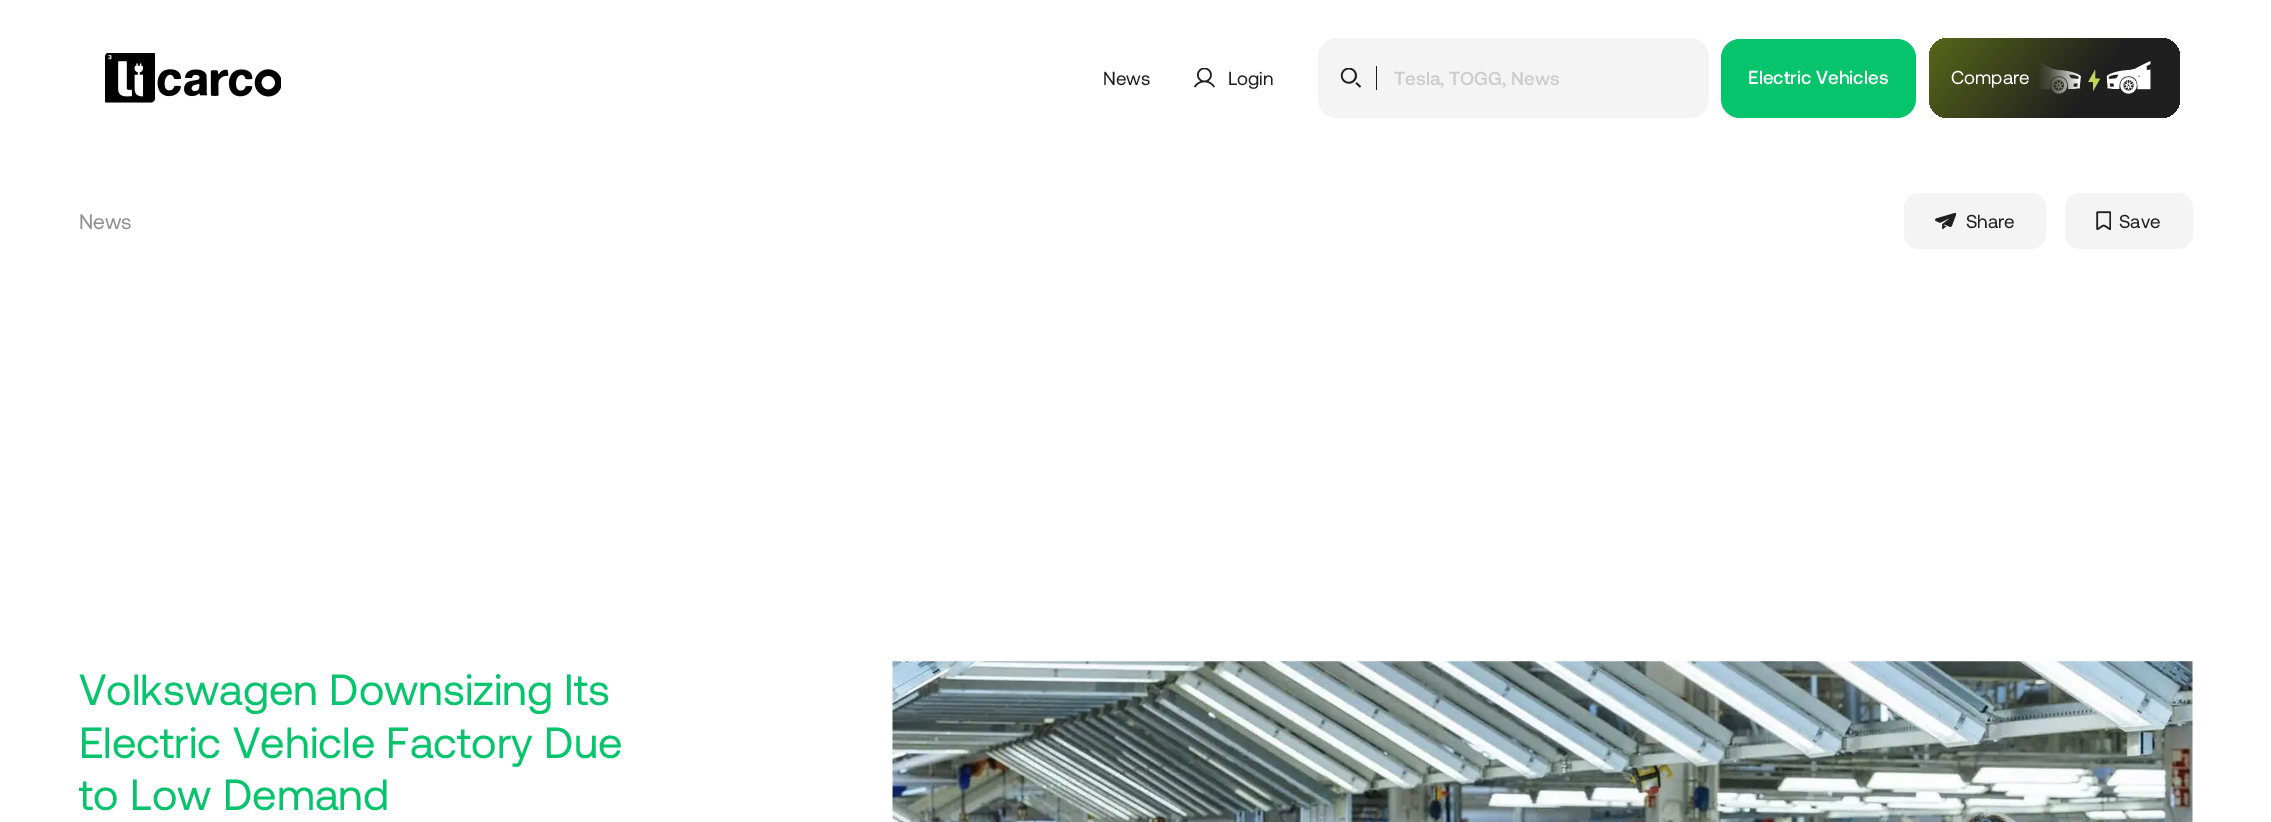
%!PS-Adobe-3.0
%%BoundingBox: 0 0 2271 822
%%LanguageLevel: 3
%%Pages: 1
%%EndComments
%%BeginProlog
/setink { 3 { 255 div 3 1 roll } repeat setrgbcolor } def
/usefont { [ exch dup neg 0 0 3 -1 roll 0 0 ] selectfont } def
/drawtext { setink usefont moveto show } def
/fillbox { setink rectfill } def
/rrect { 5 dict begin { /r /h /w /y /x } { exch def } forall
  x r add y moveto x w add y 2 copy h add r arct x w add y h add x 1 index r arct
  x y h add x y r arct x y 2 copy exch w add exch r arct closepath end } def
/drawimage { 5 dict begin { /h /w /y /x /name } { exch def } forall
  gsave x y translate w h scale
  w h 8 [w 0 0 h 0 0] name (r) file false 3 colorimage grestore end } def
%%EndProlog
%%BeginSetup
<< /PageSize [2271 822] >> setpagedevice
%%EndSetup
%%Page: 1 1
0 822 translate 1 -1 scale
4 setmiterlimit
0 0 2271 822 255 255 255 fillbox
(assets/img1.rgb) 105 53 176 50 drawimage
(News) 1103 85 /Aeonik-Regular 18.75 31 31 31 drawtext
(assets/img2.rgb) 1194 68 21 20 drawimage
(Login) 1228 85 /Aeonik-Regular 18.75 31 31 31 drawtext
244 244 244 setink
1318 38 391 80 19 rrect fill
(assets/img3.rgb) 1340 68 21 20 drawimage
1376 66 1 24 31 31 31 fillbox
(Tesla, TOGG, News) 1394 85 /Aeonik-Medium 18.75 204 204 204 drawtext
5 196 108 setink
1721 39 195 79 19 rrect fill
(Electric Vehicles) 1748 84 /Aeonik-Medium 18.75 255 255 255 drawtext
gsave 1929 38 251 80 19 rrect clip newpath
<< /ShadingType 2 /ColorSpace /DeviceRGB /Coords [1957 1.4 2152 154] /Extend [true true] /Function << /FunctionType 3 /Domain [0 1] /Functions [<< /FunctionType 2 /Domain [0 1] /C0 [0.349 0.404 0.098] /C1 [0.122 0.122 0.122] /N 1 >> << /FunctionType 2 /Domain [0 1] /C0 [0.122 0.122 0.122] /C1 [0.122 0.122 0.122] /N 1 >>] /Bounds [0.63] /Encode [0 1 0 1] >> >> shfill grestore
(Compare) 1951 84 /Aeonik-Regular 18.75 255 255 255 drawtext
(assets/img4.rgb) 2039 61 112 33 drawimage
(News) 79 229 /Aeonik-Regular 21 143 143 143 drawtext
244 244 244 setink
1904 193 142 56 15 rrect fill
(assets/img5.rgb) 1935 213 21 16 drawimage
(Share) 1966 228 /Aeonik-Regular 18.75 31 31 31 drawtext
244 244 244 setink
2065 193 128 56 15 rrect fill
(assets/img6.rgb) 2096 211 15 19 drawimage
(Save) 2119 228 /Aeonik-Regular 18.75 31 31 31 drawtext
(Volkswagen Downsizing Its) 79 705 /Aeonik-Regular 43.75 5 196 108 drawtext
(Electric Vehicle Factory Due) 79 758 /Aeonik-Regular 43.75 5 196 108 drawtext
(to Low Demand) 79 810 /Aeonik-Regular 43.75 5 196 108 drawtext
(assets/img7.rgb) 892 661 1301 161 drawimage
showpage
%%EOF
